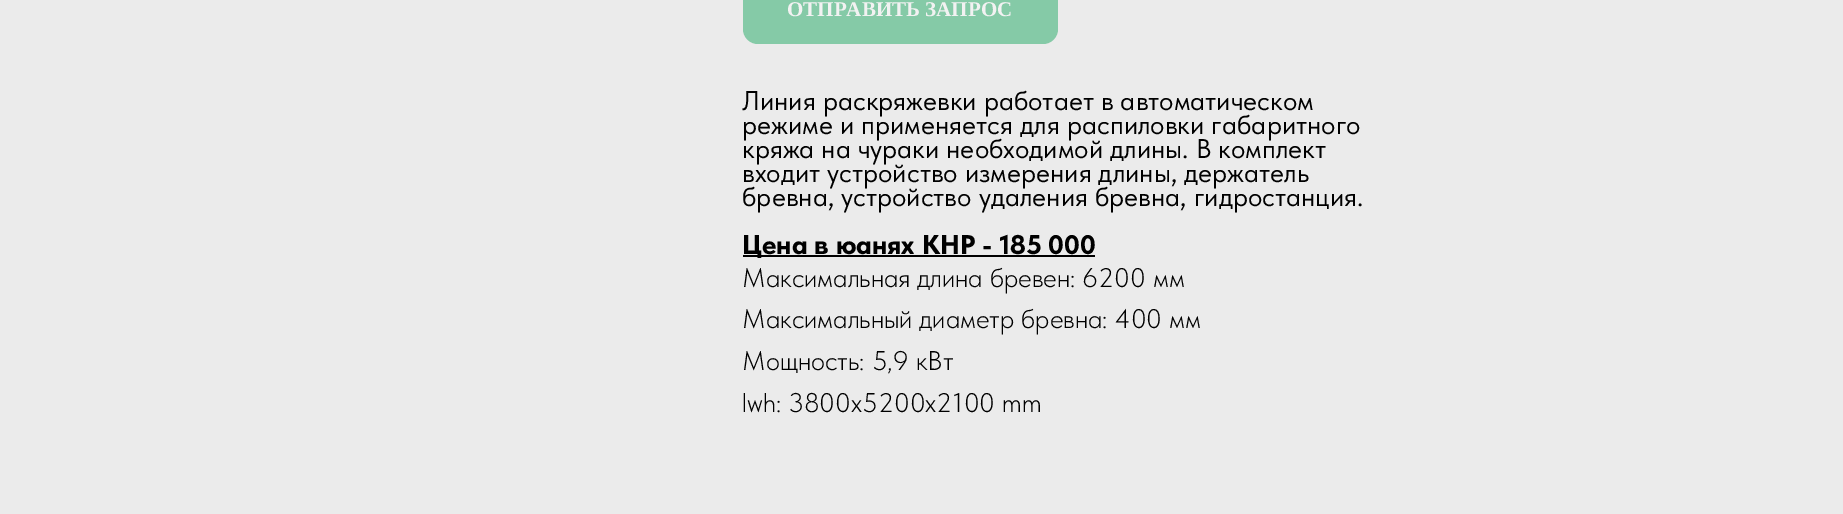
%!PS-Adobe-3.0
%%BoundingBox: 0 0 1843 514
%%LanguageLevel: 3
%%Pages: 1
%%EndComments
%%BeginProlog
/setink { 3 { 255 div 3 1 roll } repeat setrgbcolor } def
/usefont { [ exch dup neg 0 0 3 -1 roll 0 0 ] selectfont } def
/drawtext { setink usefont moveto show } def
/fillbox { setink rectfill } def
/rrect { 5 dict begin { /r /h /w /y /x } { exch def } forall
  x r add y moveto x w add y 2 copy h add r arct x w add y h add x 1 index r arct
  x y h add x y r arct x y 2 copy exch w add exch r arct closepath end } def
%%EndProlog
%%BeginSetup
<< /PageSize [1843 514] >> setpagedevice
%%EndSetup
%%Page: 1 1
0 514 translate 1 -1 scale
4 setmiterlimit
0 0 1843 514 235 235 235 fillbox
133 202 167 setink
743 -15 315 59 15 rrect fill
(ОТПРАВИТЬ ЗАПРОС) 787 16 /LiberationSerif-Bold 21 242 242 242 drawtext
(Линия раскряжевки работает в автоматическом) 742 110 /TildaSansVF-Regular 27 0 0 0 drawtext
(режиме и применяется для распиловки габаритного) 742 134 /TildaSansVF-Regular 27 0 0 0 drawtext
(кряжа на чураки необходимой длины. В комплект) 742 158 /TildaSansVF-Regular 27 0 0 0 drawtext
(входит устройство измерения длины, держатель) 742 182 /TildaSansVF-Regular 27 0 0 0 drawtext
(бревна, устройство удаления бревна, гидростанция.) 742 206 /TildaSansVF-Regular 27 0 0 0 drawtext
743 255 352 2 0 0 0 fillbox
(Цена в юанях КНР - 185 000) 742 254 /TildaSansVF-ExtraBold 27 0 0 0 drawtext
(Максимальная длина бревен: 6200 мм) 742 287 /TildaSansVF-Light 27 0 0 0 drawtext
(Максимальный диаметр бревна: 400 мм) 742 328 /TildaSansVF-Light 27 0 0 0 drawtext
(Мощность: 5,9 кВт) 742 370 /TildaSansVF-Light 27 0 0 0 drawtext
(lwh: 3800x5200x2100 mm) 742 412 /TildaSansVF-Light 27 0 0 0 drawtext
showpage
%%EOF
